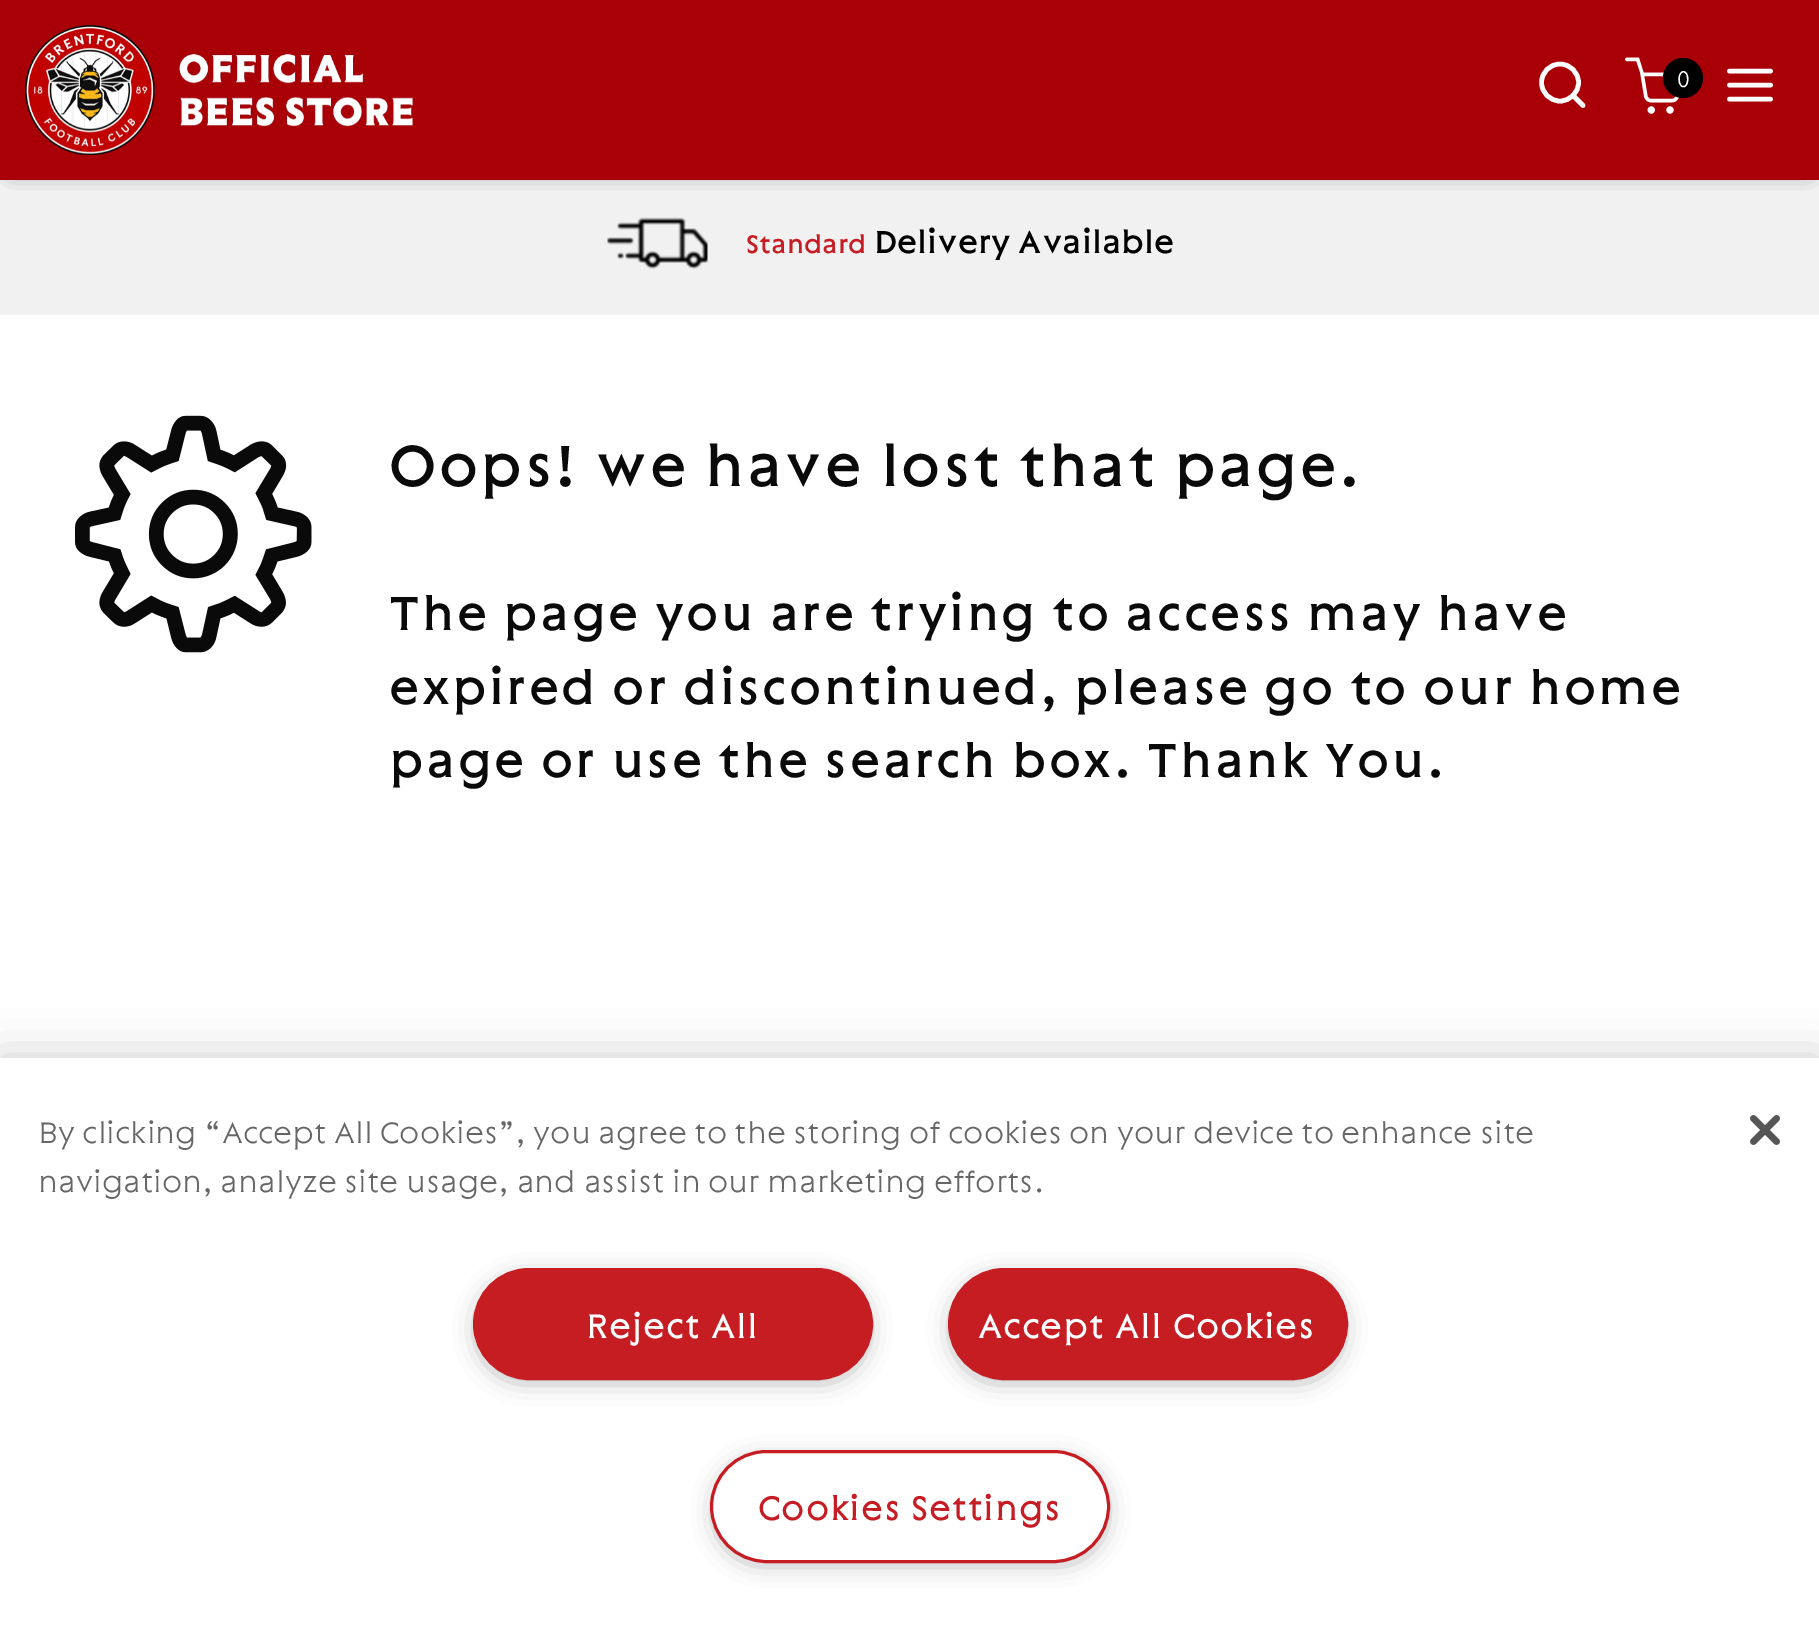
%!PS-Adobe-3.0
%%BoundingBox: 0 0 1819 1626
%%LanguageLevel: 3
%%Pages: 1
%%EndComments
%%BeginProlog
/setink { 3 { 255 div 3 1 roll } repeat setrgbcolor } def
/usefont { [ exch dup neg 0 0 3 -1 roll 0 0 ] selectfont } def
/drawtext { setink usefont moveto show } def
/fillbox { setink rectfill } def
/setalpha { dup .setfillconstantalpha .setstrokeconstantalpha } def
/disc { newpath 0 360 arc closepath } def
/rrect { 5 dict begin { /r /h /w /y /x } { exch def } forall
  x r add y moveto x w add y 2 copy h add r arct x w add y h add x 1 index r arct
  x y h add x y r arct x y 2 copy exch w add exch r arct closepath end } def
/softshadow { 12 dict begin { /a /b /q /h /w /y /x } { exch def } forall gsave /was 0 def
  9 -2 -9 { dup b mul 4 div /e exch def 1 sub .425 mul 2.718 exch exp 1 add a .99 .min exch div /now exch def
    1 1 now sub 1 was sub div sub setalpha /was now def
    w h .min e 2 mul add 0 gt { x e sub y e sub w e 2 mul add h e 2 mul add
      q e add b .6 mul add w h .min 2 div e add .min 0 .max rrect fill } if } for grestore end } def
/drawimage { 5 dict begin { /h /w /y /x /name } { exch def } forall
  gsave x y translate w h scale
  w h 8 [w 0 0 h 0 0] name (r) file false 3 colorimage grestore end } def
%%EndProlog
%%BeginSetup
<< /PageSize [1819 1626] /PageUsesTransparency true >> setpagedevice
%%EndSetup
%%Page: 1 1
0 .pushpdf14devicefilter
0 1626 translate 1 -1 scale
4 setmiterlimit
0 0 1819 1626 255 255 255 fillbox
0 180 1819 135 241 241 241 fillbox
0 0 0 setink
13 13 1795 155 0 10 1 softshadow
0 0 1819 180 168 0 6 fillbox
(assets/img1.rgb) 25 25 388 130 drawimage
255 255 255 setink
4.6 setlinewidth
1560 82.5 18.5 disc stroke
1 setlinecap
1 setlinejoin
1583 105.5 moveto 1573 95.5 lineto stroke
(assets/img2.rgb) 1625 57 54 57 drawimage
0 0 0 setink
1683 78 20 disc fill
(0) 1677 87 /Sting-Light 25 255 255 255 drawtext
1729.5 85 moveto 1770.5 85 lineto 1729.5 71 moveto 1770.5 71 lineto 1729.5 99 moveto 1770.5 99 lineto stroke
(assets/img3.rgb) 607 217 101 52 drawimage
(Standard) 746 253 /Sting-Regular 28 198 29 36 drawtext
(Delivery Available) 874 253 /Sting-Regular 35 0 0 0 drawtext
(assets/img4.rgb) 75 415 237 238 drawimage
/Sting-Regular 63.8 usefont
10 10 10 setink
389 486 moveto 2.5 0 (Oops! we have lost that page.) ashow
/Sting-Regular 52.55 usefont
389 630 moveto 2.5 0 (The page you are trying to access may have) ashow
389 704 moveto 2.5 0 (expired or discontinued, please go to our home) ashow
389 777 moveto 2.5 0 (page or use the search box. Thank You.) ashow
0 0 0 setink
0 1058 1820 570 0 22.5 0.2 softshadow
0 1058 1819 568 255 255 255 fillbox
(By clicking “Accept All Cookies”, you agree to the storing of cookies on your device to enhance site) 38 1143 /Sting-Light 32.5 102 102 102 drawtext
(navigation, analyze site usage, and assist in our marketing efforts.) 38 1192 /Sting-Light 32.5 102 102 102 drawtext
153 153 153 setink
480 1280 385 98 49 12.5 1 softshadow
198 29 35 setink
474.5 1269.5 397 109 54.5 rrect gsave fill grestore
3 setlinewidth
0 setlinecap
0 setlinejoin
stroke
/Sting-Bold 36 usefont
255 255 255 setink
586 1338 moveto 1.75 0 (Reject All) ashow
153 153 153 setink
955 1280 385 98 49 12.5 1 softshadow
198 29 35 setink
949.5 1269.5 397 109 54.5 rrect gsave fill grestore
stroke
255 255 255 setink
978 1338 moveto 1.75 0 (Accept All Cookies) ashow
153 153 153 setink
718 1463 385 97 48.5 12.5 1 softshadow
255 255 255 setink
711.5 1451.5 397 110 55 rrect gsave fill grestore
198 29 35 setink
stroke
198 29 36 setink
758 1520 moveto 1.75 0 (Cookies Settings) ashow
(assets/img5.rgb) 1750 1115 30 30 drawimage
.poppdf14devicefilter showpage
%%EOF
